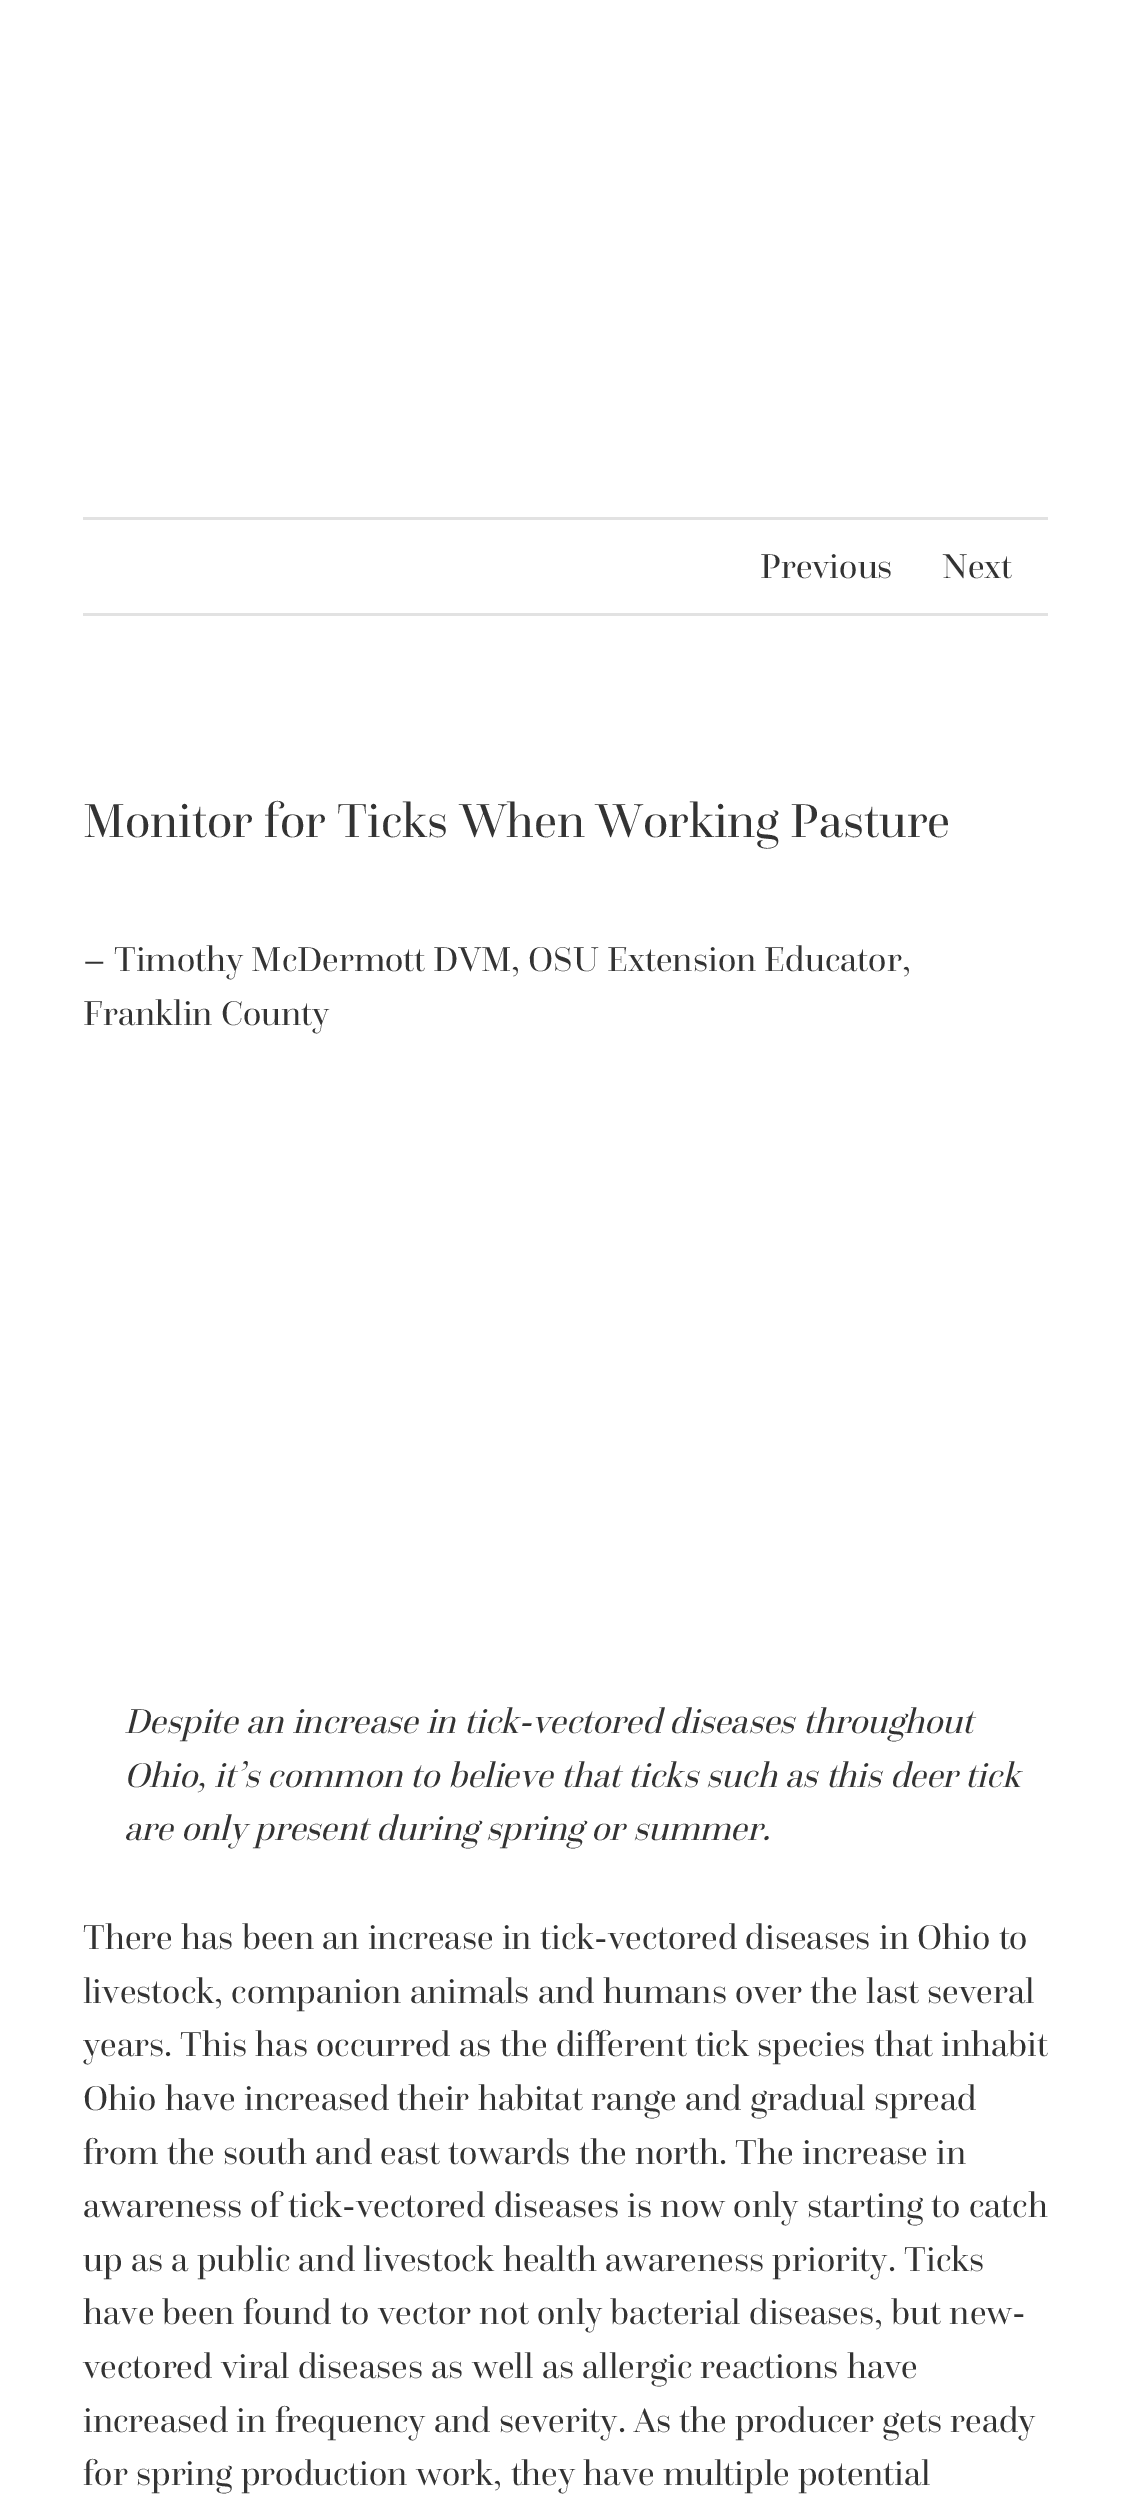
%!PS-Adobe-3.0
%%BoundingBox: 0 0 1129 2511
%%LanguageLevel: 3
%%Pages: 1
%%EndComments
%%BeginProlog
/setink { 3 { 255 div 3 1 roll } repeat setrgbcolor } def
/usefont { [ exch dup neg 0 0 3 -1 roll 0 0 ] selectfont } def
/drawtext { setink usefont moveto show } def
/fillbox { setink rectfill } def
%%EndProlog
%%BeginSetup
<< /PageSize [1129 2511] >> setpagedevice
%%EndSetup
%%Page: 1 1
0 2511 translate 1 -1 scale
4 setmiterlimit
0 0 1129 2511 255 255 255 fillbox
83 517 965 3 226 226 226 fillbox
83 613 965 3 226 226 226 fillbox
(Previous) 760 578 /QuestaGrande-Regular 35.75 51 51 51 drawtext
(Next) 942 578 /QuestaGrande-Regular 35.75 51 51 51 drawtext
(Monitor for Ticks When Working Pasture) 83 837 /QuestaGrande-Regular 49.5 51 51 51 drawtext
(– Timothy McDermott DVM, OSU Extension Educator,) 83 971 /QuestaGrande-Regular 35.75 51 51 51 drawtext
(Franklin County) 83 1025 /QuestaGrande-Regular 35.75 51 51 51 drawtext
(Despite an increase in tick-vectored diseases throughout) 124 1733 /QuestaGrande-Italic 35.75 51 51 51 drawtext
(Ohio, it’s common to believe that ticks such as this deer tick) 124 1787 /QuestaGrande-Italic 35.75 51 51 51 drawtext
(are only present during spring or summer.) 124 1840 /QuestaGrande-Italic 35.75 51 51 51 drawtext
(There has been an increase in tick-vectored diseases in Ohio to) 83 1949 /QuestaGrande-Regular 35.75 51 51 51 drawtext
(livestock, companion animals and humans over the last several) 83 2003 /QuestaGrande-Regular 35.75 51 51 51 drawtext
(years. This has occurred as the different tick species that inhabit) 83 2056 /QuestaGrande-Regular 35.75 51 51 51 drawtext
(Ohio have increased their habitat range and gradual spread) 83 2110 /QuestaGrande-Regular 35.75 51 51 51 drawtext
(from the south and east towards the north. The increase in) 83 2164 /QuestaGrande-Regular 35.75 51 51 51 drawtext
(awareness of tick-vectored diseases is now only starting to catch) 83 2217 /QuestaGrande-Regular 35.75 51 51 51 drawtext
(up as a public and livestock health awareness priority. Ticks) 83 2271 /QuestaGrande-Regular 35.75 51 51 51 drawtext
(have been found to vector not only bacterial diseases, but new-) 83 2324 /QuestaGrande-Regular 35.75 51 51 51 drawtext
(vectored viral diseases as well as allergic reactions have) 83 2378 /QuestaGrande-Regular 35.75 51 51 51 drawtext
(increased in frequency and severity. As the producer gets ready) 83 2432 /QuestaGrande-Regular 35.75 51 51 51 drawtext
(for spring production work, they have multiple potential) 83 2485 /QuestaGrande-Regular 35.75 51 51 51 drawtext
showpage
%%EOF
